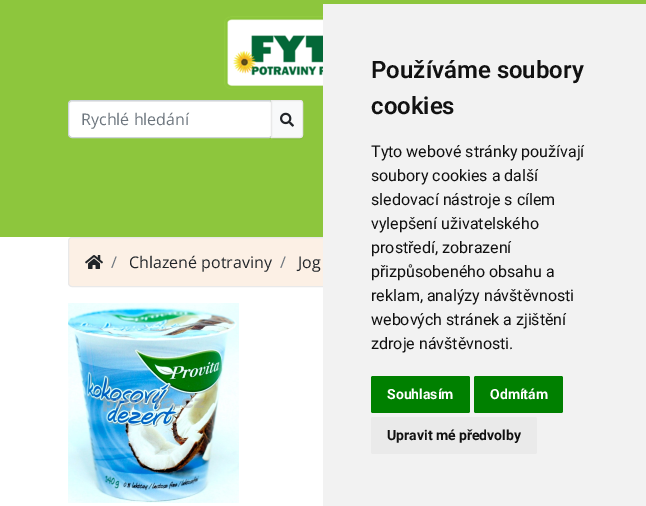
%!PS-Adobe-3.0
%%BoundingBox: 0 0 646 506
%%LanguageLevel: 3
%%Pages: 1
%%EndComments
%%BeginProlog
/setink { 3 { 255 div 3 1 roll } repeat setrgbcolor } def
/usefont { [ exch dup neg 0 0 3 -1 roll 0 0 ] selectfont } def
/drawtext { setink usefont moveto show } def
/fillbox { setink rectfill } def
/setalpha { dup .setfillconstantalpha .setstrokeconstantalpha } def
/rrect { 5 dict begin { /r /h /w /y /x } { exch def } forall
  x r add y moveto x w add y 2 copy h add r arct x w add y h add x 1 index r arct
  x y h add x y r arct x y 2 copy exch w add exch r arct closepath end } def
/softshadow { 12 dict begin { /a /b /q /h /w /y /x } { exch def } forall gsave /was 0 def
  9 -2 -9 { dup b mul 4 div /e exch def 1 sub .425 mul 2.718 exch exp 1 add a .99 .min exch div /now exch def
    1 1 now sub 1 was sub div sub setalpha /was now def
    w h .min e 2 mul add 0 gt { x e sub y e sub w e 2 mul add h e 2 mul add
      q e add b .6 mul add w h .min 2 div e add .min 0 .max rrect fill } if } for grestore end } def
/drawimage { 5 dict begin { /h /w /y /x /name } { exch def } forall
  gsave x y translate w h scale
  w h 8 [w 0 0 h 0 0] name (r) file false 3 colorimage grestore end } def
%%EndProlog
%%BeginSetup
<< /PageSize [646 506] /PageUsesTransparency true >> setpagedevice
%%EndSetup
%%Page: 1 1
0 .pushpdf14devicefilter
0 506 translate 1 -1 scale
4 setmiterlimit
0 0 646 506 255 255 255 fillbox
0 0 646 237 141 198 61 fillbox
(assets/img1.rgb) 224 16 99 73 drawimage
255 255 255 setink
69 101 203 36 3 rrect fill
0.07 setalpha
0 0 0 setink
72 102 moveto 269 102 lineto 271 102 272 103 272 105 curveto 272 103 271 101 269 101 curveto 72 101 lineto 70 101 69 103 69 105 curveto 69 103 70 102 72 102 curveto closepath fill
1 setalpha
206 212 218 setink
68.5 100.5 204 37 3.5 rrect stroke
(Rychlé hledání) 81 125 /OpenSans-Regular 16 108 117 125 drawtext
0 0 0 setink
271 101 32 38 3 0.5 0.07 softshadow
248 249 250 setink
271.5 100.5 moveto 300 100.5 lineto 301.5 100.5 302.5 101.5 302.5 103 curveto 302.5 135 lineto 302.5 136.5 301.5 137.5 300 137.5 curveto 271.5 137.5 lineto closepath gsave fill grestore
233 233 233 setink
stroke
(assets/img2.rgb) 280 112 14 15 drawimage
252 240 229 setink
68.5 237.5 509 49 3.5 rrect gsave fill grestore
233 233 233 setink
stroke
323 4 323 502 242 242 242 fillbox
(Používáme soubory) 371 78 /Roboto-SemiBold 24 17 17 17 drawtext
(cookies) 371 114 /Roboto-SemiBold 24 17 17 17 drawtext
(Tyto webové stránky používají) 371 157 /Roboto-Regular 16 17 17 17 drawtext
(soubory cookies a další) 371 181 /Roboto-Regular 16 17 17 17 drawtext
(sledovací nástroje s cílem) 371 205 /Roboto-Regular 16 17 17 17 drawtext
(vylepšení uživatelského) 371 229 /Roboto-Regular 16 17 17 17 drawtext
(prostředí, zobrazení) 371 253 /Roboto-Regular 16 17 17 17 drawtext
(přizpůsobeného obsahu a) 371 277 /Roboto-Regular 16 17 17 17 drawtext
(reklam, analýzy návštěvnosti) 371 301 /Roboto-Regular 16 17 17 17 drawtext
(webových stránek a zjištění) 371 325 /Roboto-Regular 16 17 17 17 drawtext
(zdroje návštěvnosti.) 371 349 /Roboto-Regular 16 17 17 17 drawtext
0 128 0 setink
371 376 99 37 2 rrect fill
(Souhlasím) 387 399 /Roboto-Bold 14 255 255 255 drawtext
0 128 0 setink
474 376 89 37 2 rrect fill
(Odmítám) 490 399 /Roboto-Bold 14 255 255 255 drawtext
234 234 234 setink
371 417 166 37 2 rrect fill
(Upravit mé předvolby) 387 440 /Roboto-Bold 14 17 17 17 drawtext
(assets/img3.rgb) 85 255 18 14 drawimage
(/) 111 268 /OpenSans-Regular 16 108 117 125 drawtext
(Chlazené potraviny) 129 268 /OpenSans-Regular 16 33 37 41 drawtext
(/) 280 268 /OpenSans-Regular 16 108 117 125 drawtext
(Jog) 298 268 /OpenSans-Regular 16 33 37 41 drawtext
(assets/img4.rgb) 68 303 171 200 drawimage
.poppdf14devicefilter showpage
%%EOF
